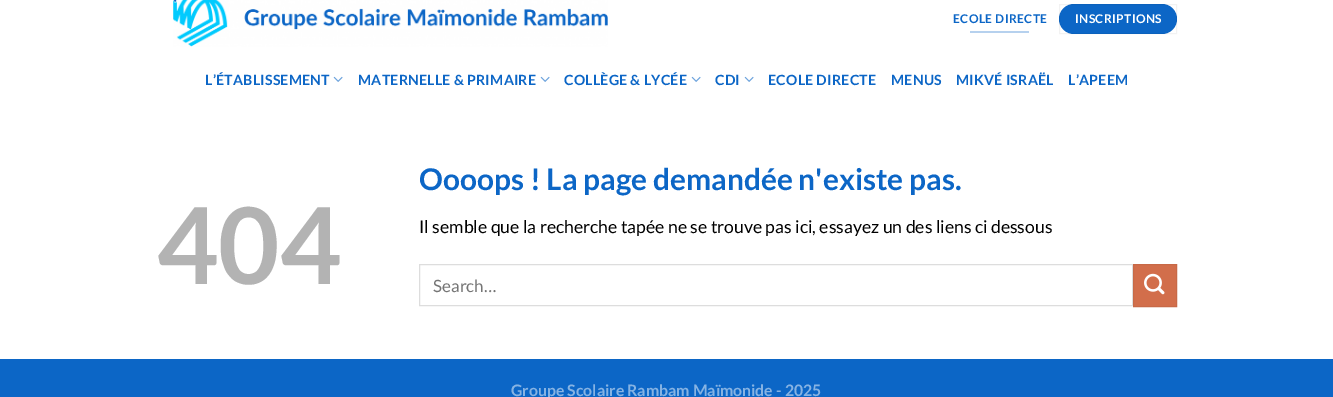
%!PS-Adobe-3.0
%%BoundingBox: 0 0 1333 397
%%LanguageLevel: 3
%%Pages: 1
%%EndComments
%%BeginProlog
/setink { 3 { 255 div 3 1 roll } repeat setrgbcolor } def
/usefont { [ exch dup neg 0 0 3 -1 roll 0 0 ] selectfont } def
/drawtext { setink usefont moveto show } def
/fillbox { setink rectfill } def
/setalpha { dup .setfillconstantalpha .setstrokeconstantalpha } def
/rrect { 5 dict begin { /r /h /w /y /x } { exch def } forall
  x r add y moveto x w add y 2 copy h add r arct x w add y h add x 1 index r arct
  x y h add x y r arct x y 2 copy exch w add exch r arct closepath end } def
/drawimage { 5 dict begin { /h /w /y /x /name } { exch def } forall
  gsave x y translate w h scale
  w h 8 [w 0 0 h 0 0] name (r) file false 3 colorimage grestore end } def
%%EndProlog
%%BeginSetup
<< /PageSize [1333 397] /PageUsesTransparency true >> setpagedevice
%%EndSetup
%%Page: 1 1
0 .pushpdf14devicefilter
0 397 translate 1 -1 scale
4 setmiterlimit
0 0 1333 397 255 255 255 fillbox
(assets/img1.rgb) 173 0 435 47 drawimage
/Lato-Bold 12 usefont
12 102 198 setink
953 23 moveto 0.4 0 (ECOLE DIRECTE) ashow
970 31 59 2 182 209 238 fillbox
12 102 198 setink
1059 4 118 30 15 rrect fill
0.05 setalpha
0 0 0 setink
1059.5 4.5 117 29 rectstroke
1 setalpha
255 255 255 setink
1075 23 moveto 0.4 0 (INSCRIPTIONS) ashow
/Lato-Bold 14.1 usefont
12 102 198 setink
205 85 moveto 0.25 0 (L’ÉTABLISSEMENT) ashow
(assets/img2.rgb) 333 76 10 6 drawimage
358 85 moveto 0.25 0 (MATERNELLE & PRIMAIRE) ashow
(assets/img2.rgb) 540 76 10 6 drawimage
564 85 moveto 0.25 0 (COLLÈGE & LYCÉE) ashow
(assets/img2.rgb) 691 76 10 6 drawimage
715 85 moveto 0.25 0 (CDI) ashow
(assets/img2.rgb) 744 76 10 6 drawimage
768 85 moveto 0.25 0 (ECOLE DIRECTE) ashow
891 85 moveto 0.25 0 (MENUS) ashow
956 85 moveto 0.25 0 (MIKVÉ ISRAËL) ashow
1068 85 moveto 0.25 0 (L’APEEM) ashow
(404) 157 284 /Lato-Bold 106 179 179 179 drawtext
(Oooops ! La page demandée n'existe pas.) 419 190 /Lato-Bold 29.9 12 102 198 drawtext
(Il semble que la recherche tapée ne se trouve pas ici, essayez un des liens ci dessous) 419 233 /Lato-Regular 17.6 0 0 0 drawtext
221 221 221 setink
419.5 264.5 713 41 rectstroke
(Search…) 433 292 /Lato-Regular 17 117 117 117 drawtext
210 110 75 setink
1133.5 264.5 moveto 1176.5 264.5 lineto 1176.5 306.5 lineto 1133.5 306.5 lineto closepath gsave fill grestore
200 105 71 setink
stroke
(assets/img3.rgb) 1144 273 21 22 drawimage
0 359 1333 38 12 102 198 fillbox
(Groupe Scolaire Rambam Maïmonide - 2025) 511 396 /Lato-Bold 15.8 134 179 227 drawtext
.poppdf14devicefilter showpage
%%EOF
